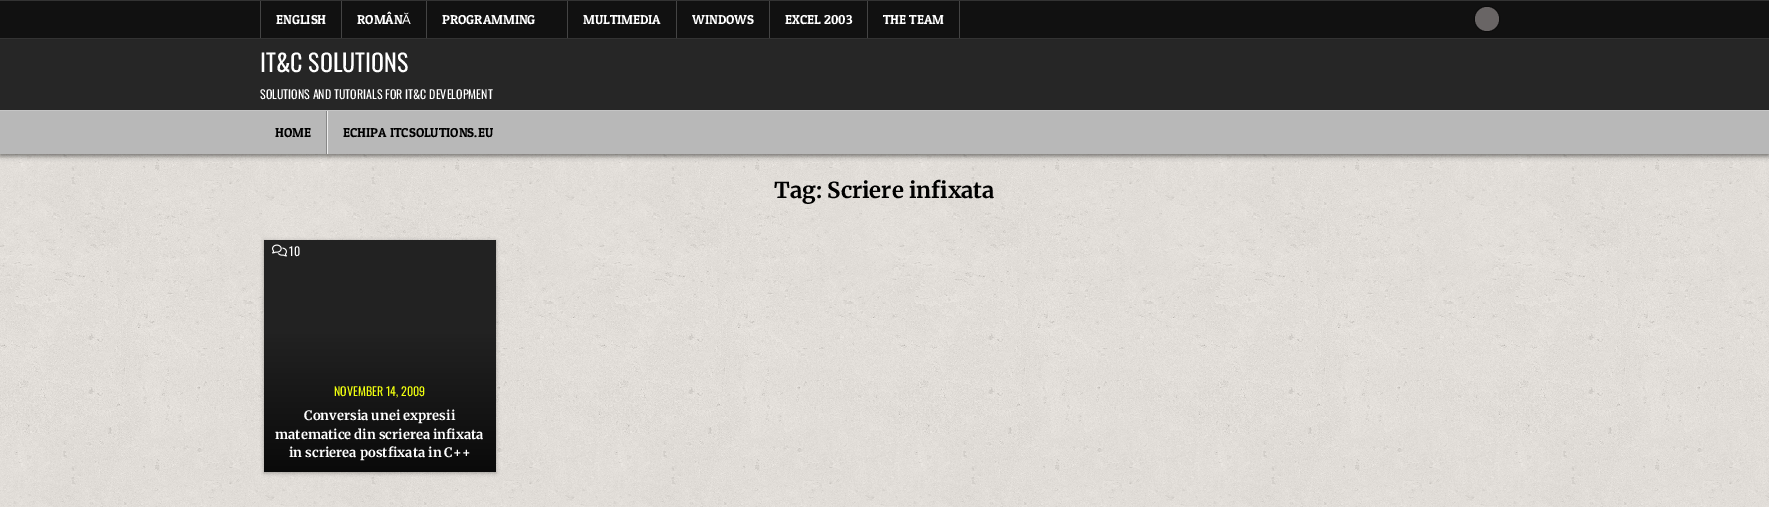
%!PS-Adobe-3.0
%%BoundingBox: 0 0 1769 507
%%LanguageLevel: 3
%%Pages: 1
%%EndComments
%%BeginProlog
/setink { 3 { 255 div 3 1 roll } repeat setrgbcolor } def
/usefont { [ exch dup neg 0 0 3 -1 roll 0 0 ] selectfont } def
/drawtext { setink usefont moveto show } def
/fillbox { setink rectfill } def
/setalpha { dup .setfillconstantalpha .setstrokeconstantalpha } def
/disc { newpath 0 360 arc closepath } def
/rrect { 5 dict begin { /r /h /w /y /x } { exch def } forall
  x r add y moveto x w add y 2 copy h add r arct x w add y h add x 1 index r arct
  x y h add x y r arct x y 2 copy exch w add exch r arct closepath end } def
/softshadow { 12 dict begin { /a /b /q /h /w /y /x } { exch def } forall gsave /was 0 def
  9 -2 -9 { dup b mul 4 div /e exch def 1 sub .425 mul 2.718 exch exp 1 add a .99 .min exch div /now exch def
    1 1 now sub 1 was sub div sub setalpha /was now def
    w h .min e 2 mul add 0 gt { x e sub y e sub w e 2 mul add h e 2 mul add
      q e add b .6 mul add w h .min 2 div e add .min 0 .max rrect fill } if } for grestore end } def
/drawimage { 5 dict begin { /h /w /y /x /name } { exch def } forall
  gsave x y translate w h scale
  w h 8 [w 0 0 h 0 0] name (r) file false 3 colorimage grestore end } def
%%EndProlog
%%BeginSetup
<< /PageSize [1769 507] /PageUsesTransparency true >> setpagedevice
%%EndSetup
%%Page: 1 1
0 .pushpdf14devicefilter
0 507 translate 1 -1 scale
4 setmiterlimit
0 0 1769 507 255 255 255 fillbox
(assets/img1.rgb) 0 154 1769 353 drawimage
0 1 1769 37 17 17 17 fillbox
0 0 1769 1 51 51 51 fillbox
0 38 1769 1 51 51 51 fillbox
341 1 1 37 68 68 68 fillbox
260 1 1 37 68 68 68 fillbox
(ENGLISH) 276 24 /PatuaOne-Regular 13 255 255 255 drawtext
426 1 1 37 68 68 68 fillbox
(ROMÂN) 357 24 /PatuaOne-Regular 13 255 255 255 drawtext
(Ă) 402 24 /LiberationSans-Regular 13 255 255 255 drawtext
567 1 1 37 68 68 68 fillbox
(PROGRAMMING) 442 24 /PatuaOne-Regular 13 255 255 255 drawtext
676 1 1 37 68 68 68 fillbox
(MULTIMEDIA) 583 24 /PatuaOne-Regular 13 255 255 255 drawtext
769 1 1 37 68 68 68 fillbox
(WINDOWS) 692 24 /PatuaOne-Regular 13 255 255 255 drawtext
867 1 1 37 68 68 68 fillbox
(EXCEL 2003) 785 24 /PatuaOne-Regular 13 255 255 255 drawtext
959 1 1 37 68 68 68 fillbox
(THE TEAM) 883 24 /PatuaOne-Regular 13 255 255 255 drawtext
0 0 0 setink
1475 7 24 24 12 1 1 softshadow
105 101 101 setink
1487 19 12 disc fill
0 0 0 setink
0 112 1769 44 0 2.5 0.5 softshadow
0 39 1769 71 38 38 38 fillbox
(IT&C SOLUTIONS) 260 72 /Oswald-Regular 24 255 255 255 drawtext
(SOLUTIONS AND TUTORIALS FOR IT&C DEVELOPMENT) 260 99 /Oswald-Regular 12 255 255 255 drawtext
0 111 1769 43 184 184 184 fillbox
0 110 1769 1 197 197 197 fillbox
326 111 1 43 136 136 136 fillbox
(HOME) 275 137 /PatuaOne-Regular 13 0 0 0 drawtext
327 111 1 43 238 238 238 fillbox
(ECHIPA ITCSOLUTIONS.EU) 343 137 /PatuaOne-Regular 13 0 0 0 drawtext
(Tag: Scriere infixata) 774 198 /Merriweather-Bold 22 0 0 0 drawtext
264 241 232 232 0 2 0.3 softshadow
gsave 264 240 moveto 496 240 lineto 496 472 lineto 264 472 lineto closepath clip newpath
<< /ShadingType 2 /ColorSpace /DeviceRGB /Coords [380 472 380 240] /Extend [true true] /Function << /FunctionType 3 /Domain [0 1] /Functions [<< /FunctionType 2 /Domain [0 1] /C0 [0.039 0.039 0.039] /C1 [0.133 0.133 0.133] /N 1 >> << /FunctionType 2 /Domain [0 1] /C0 [0.133 0.133 0.133] /C1 [0.133 0.133 0.133] /N 1 >>] /Bounds [0.6] /Encode [0 1 0 1] >> >> shfill grestore
(assets/img2.rgb) 272 244 15 13 drawimage
(10) 289 256 /Oswald-Regular 12 255 255 255 drawtext
(NOVEMBER 14, 2009) 334 396 /Oswald-Regular 12 240 255 14 drawtext
(Conversia unei expresii) 304 420 /Merriweather-Bold 13 255 255 255 drawtext
(matematice din scrierea infixata) 275 439 /Merriweather-Bold 13 255 255 255 drawtext
(in scrierea postfixata in C++) 289 457 /Merriweather-Bold 13 255 255 255 drawtext
.poppdf14devicefilter showpage
%%EOF
